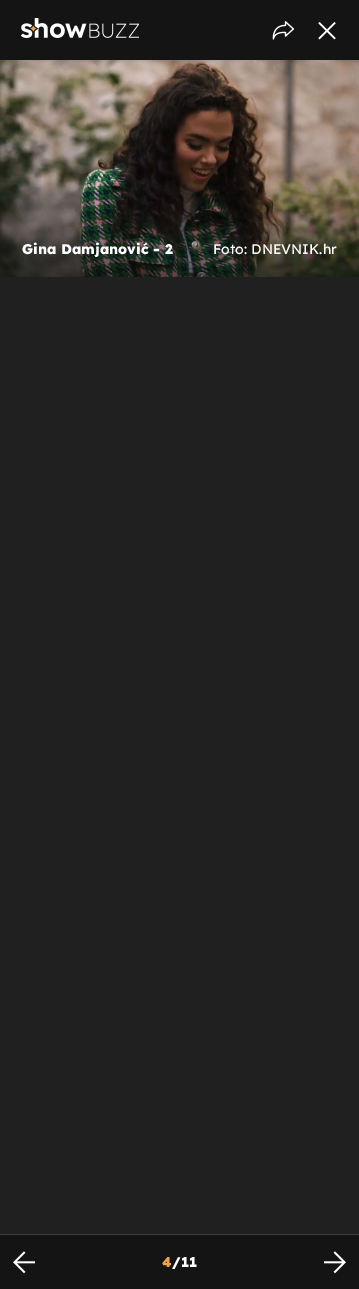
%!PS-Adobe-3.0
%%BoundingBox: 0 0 359 1289
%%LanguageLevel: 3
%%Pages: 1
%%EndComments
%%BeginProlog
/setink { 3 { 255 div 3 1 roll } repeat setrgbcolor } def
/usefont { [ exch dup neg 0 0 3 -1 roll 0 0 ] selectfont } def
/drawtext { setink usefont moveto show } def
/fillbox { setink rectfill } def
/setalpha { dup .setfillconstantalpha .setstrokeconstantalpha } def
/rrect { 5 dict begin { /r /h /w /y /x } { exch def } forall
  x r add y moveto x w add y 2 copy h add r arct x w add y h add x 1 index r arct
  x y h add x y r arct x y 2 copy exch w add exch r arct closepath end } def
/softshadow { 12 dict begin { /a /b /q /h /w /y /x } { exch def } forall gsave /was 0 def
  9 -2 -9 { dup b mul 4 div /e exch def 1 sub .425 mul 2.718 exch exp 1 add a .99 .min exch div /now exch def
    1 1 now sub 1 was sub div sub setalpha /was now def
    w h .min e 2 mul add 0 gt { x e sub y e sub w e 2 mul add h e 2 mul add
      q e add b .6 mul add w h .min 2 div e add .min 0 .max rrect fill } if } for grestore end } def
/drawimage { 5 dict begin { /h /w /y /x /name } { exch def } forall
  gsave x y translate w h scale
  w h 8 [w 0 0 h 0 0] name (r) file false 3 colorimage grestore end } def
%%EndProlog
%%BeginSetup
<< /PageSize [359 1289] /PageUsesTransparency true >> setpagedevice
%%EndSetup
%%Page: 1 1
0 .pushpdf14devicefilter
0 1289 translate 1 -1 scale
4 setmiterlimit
0 0 359 1289 32 32 32 fillbox
(assets/img4.rgb) 0 60 359 217 drawimage
0 0 0 setink
0 2 359 60 0 3.5 0.15 softshadow
0 0 359 60 20 20 20 fillbox
(assets/img1.rgb) 21 18 118 20 drawimage
(assets/img2.rgb) 272 21 23 19 drawimage
(assets/img3.rgb) 318 22 18 18 drawimage
(Gina Damjanović - 2) 22 254 /Lexend-ExtraBold 14 255 255 255 drawtext
(Foto: DNEVNIK.hr) 213 254 /Lexend-Regular 14 255 255 255 drawtext
0 1235 359 54 20 20 20 fillbox
0 1234 359 1 61 61 61 fillbox
(assets/img5.rgb) 13 1251 22 23 drawimage
(4) 162 1267 /Lexend-ExtraBold 14 242 164 68 drawtext
(/11) 172 1267 /Lexend-ExtraBold 14 255 255 255 drawtext
(assets/img6.rgb) 324 1251 22 23 drawimage
.poppdf14devicefilter showpage
%%EOF
